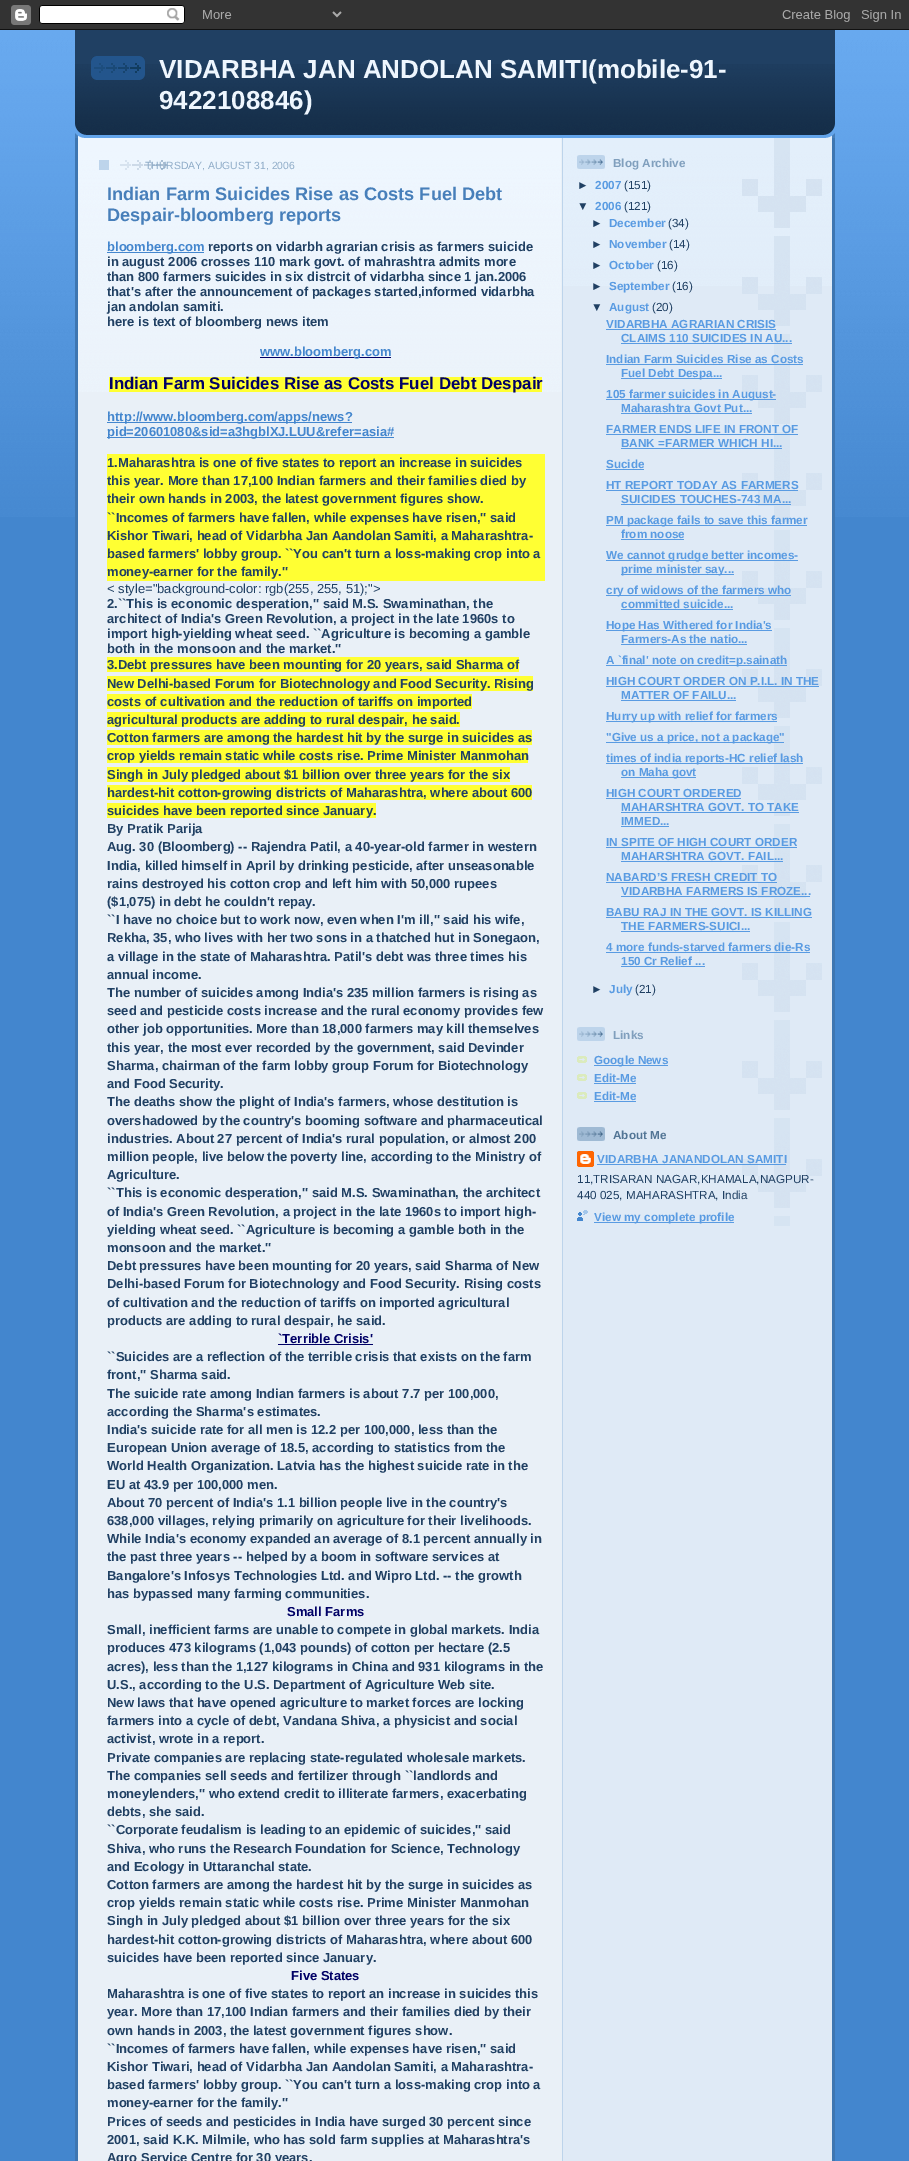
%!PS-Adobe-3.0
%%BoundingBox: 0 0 909 2161
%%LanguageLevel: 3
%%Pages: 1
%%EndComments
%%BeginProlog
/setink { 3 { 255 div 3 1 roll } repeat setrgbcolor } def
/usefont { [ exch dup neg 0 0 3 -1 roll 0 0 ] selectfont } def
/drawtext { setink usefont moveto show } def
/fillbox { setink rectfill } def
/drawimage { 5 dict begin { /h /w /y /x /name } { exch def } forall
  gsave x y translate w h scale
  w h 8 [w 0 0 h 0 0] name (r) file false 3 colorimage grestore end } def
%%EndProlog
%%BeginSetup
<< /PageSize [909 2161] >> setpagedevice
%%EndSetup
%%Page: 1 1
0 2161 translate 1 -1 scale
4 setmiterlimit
0 0 909 2161 67 134 206 fillbox
(assets/img1.rgb) 0 30 909 487 drawimage
(assets/img2.rgb) 0 0 909 30 drawimage
(assets/img3.rgb) 75 123 760 15 drawimage
75 30 760 34 32 64 99 fillbox
(assets/img4.rgb) 75 64 760 59 drawimage
(assets/img5.rgb) 91 56 54 24 drawimage
(VIDARBHA JAN ANDOLAN SAMITI\(mobile-91-) 159 78 /LiberationSans-Bold 26 238 246 254 drawtext
(9422108846\)) 159 109 /LiberationSans-Bold 26 238 246 254 drawtext
(assets/img6.rgb) 75 138 760 2023 drawimage
(assets/img7.rgb) 78 138 483 254 drawimage
99 160 10 10 189 212 235 fillbox
(assets/img8.rgb) 120 160 47 10 drawimage
(THURSDAY, AUGUST 31, 2006) 145 169 /LiberationSans-Regular 10.4 143 172 200 drawtext
(Indian Farm Suicides Rise as Costs Fuel Debt) 107 200 /LiberationSans-Bold 18.2 71 127 186 drawtext
(Despair-bloomberg reports) 107 221 /LiberationSans-Bold 18.2 71 127 186 drawtext
107 252 97 1 67 134 206 fillbox
(bloomberg.com) 107 251 /LiberationSans-Bold 13 67 134 206 drawtext
(reports on vidarbh agrarian crisis as farmers suicide) 208 251 /LiberationSans-Bold 13 32 64 99 drawtext
(in august 2006 crosses 110 mark govt. of mahrashtra admits more) 107 266 /LiberationSans-Bold 13 32 64 99 drawtext
(than 800 farmers suicides in six distrcit of vidarbha since 1 jan.2006) 107 281 /LiberationSans-Bold 13 32 64 99 drawtext
(that's after the announcement of packages started,informed vidarbha) 107 296 /LiberationSans-Bold 13 32 64 99 drawtext
(jan andolan samiti.) 107 311 /LiberationSans-Bold 13 32 64 99 drawtext
(here is text of bloomberg news item) 107 326 /LiberationSans-Bold 13 32 64 99 drawtext
260 357 131 1 0 0 102 fillbox
(www.bloomberg.com) 260 356 /LiberationSans-Bold 13 67 134 206 drawtext
109 377 433 15 255 255 51 fillbox
(Indian Farm Suicides Rise as Costs Fuel Debt Despair) 109 389 /LiberationSans-Bold 16.9 0 0 102 drawtext
107 422 245 1 67 134 206 fillbox
(http://www.bloomberg.com/apps/news?) 107 421 /LiberationSans-Bold 13 67 134 206 drawtext
107 437 287 1 67 134 206 fillbox
(pid=20601080&sid=a3hgblXJ.LUU&refer=asia#) 107 436 /LiberationSans-Bold 13 67 134 206 drawtext
107 454 438 127 255 255 51 fillbox
(1.Maharashtra is one of five states to report an increase in suicides) 107 467 /LiberationSans-Bold 13 32 64 99 drawtext
(this year. More than 17,100 Indian farmers and their families died by) 107 485 /LiberationSans-Bold 13 32 64 99 drawtext
(their own hands in 2003, the latest government figures show.) 107 503 /LiberationSans-Bold 13 32 64 99 drawtext
(``Incomes of farmers have fallen, while expenses have risen,'' said) 107 522 /LiberationSans-Bold 13 32 64 99 drawtext
(Kishor Tiwari, head of Vidarbha Jan Aandolan Samiti, a Maharashtra-) 107 540 /LiberationSans-Bold 13 32 64 99 drawtext
(based farmers' lobby group. ``You can't turn a loss-making crop into a) 107 558 /LiberationSans-Bold 13 32 64 99 drawtext
(money-earner for the family.'') 107 576 /LiberationSans-Bold 13 32 64 99 drawtext
(< style="background-color: rgb\(255, 255, 51\);">) 107 593 /LiberationSans-Regular 13 32 64 99 drawtext
(2.``This is economic desperation,'' said M.S. Swaminathan, the) 107 608 /LiberationSans-Bold 13 32 64 99 drawtext
(architect of India's Green Revolution, a project in the late 1960s to) 107 623 /LiberationSans-Bold 13 32 64 99 drawtext
(import high-yielding wheat seed. ``Agriculture is becoming a gamble) 107 638 /LiberationSans-Bold 13 32 64 99 drawtext
(both in the monsoon and the market.'') 107 653 /LiberationSans-Bold 13 32 64 99 drawtext
107 657 412 15 255 255 51 fillbox
(3.Debt pressures have been mounting for 20 years, said Sharma of) 107 669 /LiberationSans-Bold 13 32 64 99 drawtext
107 676 426 15 255 255 51 fillbox
(New Delhi-based Forum for Biotechnology and Food Security. Rising) 107 688 /LiberationSans-Bold 13 32 64 99 drawtext
107 694 365 15 255 255 51 fillbox
(costs of cultivation and the reduction of tariffs on imported) 107 706 /LiberationSans-Bold 13 32 64 99 drawtext
107 712 353 15 255 255 51 fillbox
(agricultural products are adding to rural despair, he said.) 107 724 /LiberationSans-Bold 13 32 64 99 drawtext
107 730 425 15 255 255 51 fillbox
(Cotton farmers are among the hardest hit by the surge in suicides as) 107 742 /LiberationSans-Bold 13 32 64 99 drawtext
107 748 421 15 255 255 51 fillbox
(crop yields remain static while costs rise. Prime Minister Manmohan) 107 760 /LiberationSans-Bold 13 32 64 99 drawtext
107 767 403 15 255 255 51 fillbox
(Singh in July pledged about $1 billion over three years for the six) 107 779 /LiberationSans-Bold 13 32 64 99 drawtext
107 785 425 15 255 255 51 fillbox
(hardest-hit cotton-growing districts of Maharashtra, where about 600) 107 797 /LiberationSans-Bold 13 32 64 99 drawtext
107 803 269 15 255 255 51 fillbox
(suicides have been reported since January.) 107 815 /LiberationSans-Bold 13 32 64 99 drawtext
(By Pratik Parija) 107 833 /LiberationSans-Bold 13 32 64 99 drawtext
(Aug. 30 \(Bloomberg\) -- Rajendra Patil, a 40-year-old farmer in western) 107 851 /LiberationSans-Bold 13 32 64 99 drawtext
(India, killed himself in April by drinking pesticide, after unseasonable) 107 870 /LiberationSans-Bold 13 32 64 99 drawtext
(rains destroyed his cotton crop and left him with 50,000 rupees) 107 888 /LiberationSans-Bold 13 32 64 99 drawtext
(\($1,075\) in debt he couldn't repay.) 107 906 /LiberationSans-Bold 13 32 64 99 drawtext
(``I have no choice but to work now, even when I'm ill,'' said his wife,) 107 924 /LiberationSans-Bold 13 32 64 99 drawtext
(Rekha, 35, who lives with her two sons in a thatched hut in Sonegaon,) 107 942 /LiberationSans-Bold 13 32 64 99 drawtext
(a village in the state of Maharashtra. Patil's debt was three times his) 107 961 /LiberationSans-Bold 13 32 64 99 drawtext
(annual income.) 107 979 /LiberationSans-Bold 13 32 64 99 drawtext
(The number of suicides among India's 235 million farmers is rising as) 107 997 /LiberationSans-Bold 13 32 64 99 drawtext
(seed and pesticide costs increase and the rural economy provides few) 107 1015 /LiberationSans-Bold 13 32 64 99 drawtext
(other job opportunities. More than 18,000 farmers may kill themselves) 107 1033 /LiberationSans-Bold 13 32 64 99 drawtext
(this year, the most ever recorded by the government, said Devinder) 107 1052 /LiberationSans-Bold 13 32 64 99 drawtext
(Sharma, chairman of the farm lobby group Forum for Biotechnology) 107 1070 /LiberationSans-Bold 13 32 64 99 drawtext
(and Food Security.) 107 1088 /LiberationSans-Bold 13 32 64 99 drawtext
(The deaths show the plight of India's farmers, whose destitution is) 107 1106 /LiberationSans-Bold 13 32 64 99 drawtext
(overshadowed by the country's booming software and pharmaceutical) 107 1125 /LiberationSans-Bold 13 32 64 99 drawtext
(industries. About 27 percent of India's rural population, or almost 200) 107 1143 /LiberationSans-Bold 13 32 64 99 drawtext
(million people, live below the poverty line, according to the Ministry of) 107 1161 /LiberationSans-Bold 13 32 64 99 drawtext
(Agriculture.) 107 1179 /LiberationSans-Bold 13 32 64 99 drawtext
(``This is economic desperation,'' said M.S. Swaminathan, the architect) 107 1197 /LiberationSans-Bold 13 32 64 99 drawtext
(of India's Green Revolution, a project in the late 1960s to import high-) 107 1216 /LiberationSans-Bold 13 32 64 99 drawtext
(yielding wheat seed. ``Agriculture is becoming a gamble both in the) 107 1234 /LiberationSans-Bold 13 32 64 99 drawtext
(monsoon and the market.'') 107 1252 /LiberationSans-Bold 13 32 64 99 drawtext
(Debt pressures have been mounting for 20 years, said Sharma of New) 107 1270 /LiberationSans-Bold 13 32 64 99 drawtext
(Delhi-based Forum for Biotechnology and Food Security. Rising costs) 107 1288 /LiberationSans-Bold 13 32 64 99 drawtext
(of cultivation and the reduction of tariffs on imported agricultural) 107 1307 /LiberationSans-Bold 13 32 64 99 drawtext
(products are adding to rural despair, he said.) 107 1325 /LiberationSans-Bold 13 32 64 99 drawtext
(`Terrible Crisis') 278 1343 /LiberationSans-Bold 13 0 0 102 drawtext
278 1344 95 1 0 0 102 fillbox
(``Suicides are a reflection of the terrible crisis that exists on the farm) 107 1361 /LiberationSans-Bold 13 32 64 99 drawtext
(front,'' Sharma said.) 107 1379 /LiberationSans-Bold 13 32 64 99 drawtext
(The suicide rate among Indian farmers is about 7.7 per 100,000,) 107 1398 /LiberationSans-Bold 13 32 64 99 drawtext
(according the Sharma's estimates.) 107 1416 /LiberationSans-Bold 13 32 64 99 drawtext
(India's suicide rate for all men is 12.2 per 100,000, less than the) 107 1434 /LiberationSans-Bold 13 32 64 99 drawtext
(European Union average of 18.5, according to statistics from the) 107 1452 /LiberationSans-Bold 13 32 64 99 drawtext
(World Health Organization. Latvia has the highest suicide rate in the) 107 1470 /LiberationSans-Bold 13 32 64 99 drawtext
(EU at 43.9 per 100,000 men.) 107 1489 /LiberationSans-Bold 13 32 64 99 drawtext
(About 70 percent of India's 1.1 billion people live in the country's) 107 1507 /LiberationSans-Bold 13 32 64 99 drawtext
(638,000 villages, relying primarily on agriculture for their livelihoods.) 107 1525 /LiberationSans-Bold 13 32 64 99 drawtext
(While India's economy expanded an average of 8.1 percent annually in) 107 1543 /LiberationSans-Bold 13 32 64 99 drawtext
(the past three years -- helped by a boom in software services at) 107 1561 /LiberationSans-Bold 13 32 64 99 drawtext
(Bangalore's Infosys Technologies Ltd. and Wipro Ltd. -- the growth) 107 1580 /LiberationSans-Bold 13 32 64 99 drawtext
(has bypassed many farming communities.) 107 1598 /LiberationSans-Bold 13 32 64 99 drawtext
(Small Farms) 287 1616 /LiberationSans-Bold 13 0 0 102 drawtext
(Small, inefficient farms are unable to compete in global markets. India) 107 1634 /LiberationSans-Bold 13 32 64 99 drawtext
(produces 473 kilograms \(1,043 pounds\) of cotton per hectare \(2.5) 107 1652 /LiberationSans-Bold 13 32 64 99 drawtext
(acres\), less than the 1,127 kilograms in China and 931 kilograms in the) 107 1671 /LiberationSans-Bold 13 32 64 99 drawtext
(U.S., according to the U.S. Department of Agriculture Web site.) 107 1689 /LiberationSans-Bold 13 32 64 99 drawtext
(New laws that have opened agriculture to market forces are locking) 107 1707 /LiberationSans-Bold 13 32 64 99 drawtext
(farmers into a cycle of debt, Vandana Shiva, a physicist and social) 107 1725 /LiberationSans-Bold 13 32 64 99 drawtext
(activist, wrote in a report.) 107 1743 /LiberationSans-Bold 13 32 64 99 drawtext
(Private companies are replacing state-regulated wholesale markets.) 107 1762 /LiberationSans-Bold 13 32 64 99 drawtext
(The companies sell seeds and fertilizer through ``landlords and) 107 1780 /LiberationSans-Bold 13 32 64 99 drawtext
(moneylenders,'' who extend credit to illiterate farmers, exacerbating) 107 1798 /LiberationSans-Bold 13 32 64 99 drawtext
(debts, she said.) 107 1816 /LiberationSans-Bold 13 32 64 99 drawtext
(``Corporate feudalism is leading to an epidemic of suicides,'' said) 107 1834 /LiberationSans-Bold 13 32 64 99 drawtext
(Shiva, who runs the Research Foundation for Science, Technology) 107 1853 /LiberationSans-Bold 13 32 64 99 drawtext
(and Ecology in Uttaranchal state.) 107 1871 /LiberationSans-Bold 13 32 64 99 drawtext
(Cotton farmers are among the hardest hit by the surge in suicides as) 107 1889 /LiberationSans-Bold 13 32 64 99 drawtext
(crop yields remain static while costs rise. Prime Minister Manmohan) 107 1907 /LiberationSans-Bold 13 32 64 99 drawtext
(Singh in July pledged about $1 billion over three years for the six) 107 1925 /LiberationSans-Bold 13 32 64 99 drawtext
(hardest-hit cotton-growing districts of Maharashtra, where about 600) 107 1944 /LiberationSans-Bold 13 32 64 99 drawtext
(suicides have been reported since January.) 107 1962 /LiberationSans-Bold 13 32 64 99 drawtext
(Five States) 291 1980 /LiberationSans-Bold 13 0 0 102 drawtext
(Maharashtra is one of five states to report an increase in suicides this) 107 1998 /LiberationSans-Bold 13 32 64 99 drawtext
(year. More than 17,100 Indian farmers and their families died by their) 107 2016 /LiberationSans-Bold 13 32 64 99 drawtext
(own hands in 2003, the latest government figures show.) 107 2035 /LiberationSans-Bold 13 32 64 99 drawtext
(``Incomes of farmers have fallen, while expenses have risen,'' said) 107 2053 /LiberationSans-Bold 13 32 64 99 drawtext
(Kishor Tiwari, head of Vidarbha Jan Aandolan Samiti, a Maharashtra-) 107 2071 /LiberationSans-Bold 13 32 64 99 drawtext
(based farmers' lobby group. ``You can't turn a loss-making crop into a) 107 2089 /LiberationSans-Bold 13 32 64 99 drawtext
(money-earner for the family.'') 107 2107 /LiberationSans-Bold 13 32 64 99 drawtext
(Prices of seeds and pesticides in India have surged 30 percent since) 107 2126 /LiberationSans-Bold 13 32 64 99 drawtext
(2001, said K.K. Milmile, who has sold farm supplies at Maharashtra's) 107 2144 /LiberationSans-Bold 13 32 64 99 drawtext
(Agro Service Centre for 30 years.) 107 2162 /LiberationSans-Bold 13 32 64 99 drawtext
(assets/img9.rgb) 563 138 269 148 drawimage
(assets/img10.rgb) 742 138 80 1088 drawimage
(assets/img11.rgb) 577 155 28 14 drawimage
(Blog Archive) 613 167 /LiberationSans-Bold 11.7 128 159 189 drawtext
(►) 577 189 /LiberationSans-Bold 11.7 32 64 99 drawtext
(2007) 595 189 /LiberationSans-Bold 11.7 89 155 226 drawtext
(\(151\)) 624 189 /LiberationSans-Regular 11.7 32 64 99 drawtext
(▼) 577 210 /LiberationSans-Bold 11.7 32 64 99 drawtext
(2006) 595 210 /LiberationSans-Bold 11.7 89 155 226 drawtext
(\(121\)) 624 210 /LiberationSans-Regular 11.7 32 64 99 drawtext
(►) 591 227 /LiberationSans-Bold 11.7 32 64 99 drawtext
(December) 609 227 /LiberationSans-Bold 11.7 89 155 226 drawtext
(\(34\)) 668 227 /LiberationSans-Regular 11.7 32 64 99 drawtext
(►) 591 248 /LiberationSans-Bold 11.7 32 64 99 drawtext
(November) 609 248 /LiberationSans-Bold 11.7 89 155 226 drawtext
(\(14\)) 669 248 /LiberationSans-Regular 11.7 32 64 99 drawtext
(►) 591 269 /LiberationSans-Bold 11.7 32 64 99 drawtext
(October) 609 269 /LiberationSans-Bold 11.7 89 155 226 drawtext
(\(16\)) 657 269 /LiberationSans-Regular 11.7 32 64 99 drawtext
(►) 591 290 /LiberationSans-Bold 11.7 32 64 99 drawtext
(September) 609 290 /LiberationSans-Bold 11.7 89 155 226 drawtext
(\(16\)) 672 290 /LiberationSans-Regular 11.7 32 64 99 drawtext
(▼) 591 311 /LiberationSans-Bold 11.7 32 64 99 drawtext
(August) 609 311 /LiberationSans-Bold 11.7 89 155 226 drawtext
(\(20\)) 652 311 /LiberationSans-Regular 11.7 32 64 99 drawtext
(VIDARBHA AGRARIAN CRISIS) 606 328 /LiberationSans-Bold 11.7 89 155 226 drawtext
606 329 170 1 89 155 226 fillbox
(CLAIMS 110 SUICIDES IN AU...) 621 342 /LiberationSans-Bold 11.7 89 155 226 drawtext
621 343 171 1 89 155 226 fillbox
(Indian Farm Suicides Rise as Costs) 606 363 /LiberationSans-Bold 11.7 89 155 226 drawtext
606 364 197 1 89 155 226 fillbox
621 378 101 1 89 155 226 fillbox
(Fuel Debt Despa...) 621 377 /LiberationSans-Bold 11.7 89 155 226 drawtext
606 399 170 1 89 155 226 fillbox
(105 farmer suicides in August-) 606 398 /LiberationSans-Bold 11.7 89 155 226 drawtext
(Maharashtra Govt Put...) 621 412 /LiberationSans-Bold 11.7 89 155 226 drawtext
621 413 131 1 89 155 226 fillbox
(FARMER ENDS LIFE IN FRONT OF) 606 433 /LiberationSans-Bold 11.7 89 155 226 drawtext
606 434 192 1 89 155 226 fillbox
(BANK =FARMER WHICH HI...) 621 447 /LiberationSans-Bold 11.7 89 155 226 drawtext
621 448 161 1 89 155 226 fillbox
(Sucide) 606 468 /LiberationSans-Bold 11.7 89 155 226 drawtext
606 469 38 1 89 155 226 fillbox
(HT REPORT TODAY AS FARMERS) 606 489 /LiberationSans-Bold 11.7 89 155 226 drawtext
606 490 192 1 89 155 226 fillbox
(SUICIDES TOUCHES-743 MA...) 621 503 /LiberationSans-Bold 11.7 89 155 226 drawtext
621 504 170 1 89 155 226 fillbox
606 525 201 1 89 155 226 fillbox
(PM package fails to save this farmer) 606 524 /LiberationSans-Bold 11.7 89 155 226 drawtext
(from noose) 621 538 /LiberationSans-Bold 11.7 89 155 226 drawtext
621 539 63 1 89 155 226 fillbox
606 560 192 1 89 155 226 fillbox
(We cannot grudge better incomes-) 606 559 /LiberationSans-Bold 11.7 89 155 226 drawtext
621 574 113 1 89 155 226 fillbox
(prime minister say...) 621 573 /LiberationSans-Bold 11.7 89 155 226 drawtext
606 595 185 1 89 155 226 fillbox
(cry of widows of the farmers who) 606 594 /LiberationSans-Bold 11.7 89 155 226 drawtext
(committed suicide...) 621 608 /LiberationSans-Bold 11.7 89 155 226 drawtext
621 609 112 1 89 155 226 fillbox
606 630 166 1 89 155 226 fillbox
(Hope Has Withered for India's) 606 629 /LiberationSans-Bold 11.7 89 155 226 drawtext
(Farmers-As the natio...) 621 643 /LiberationSans-Bold 11.7 89 155 226 drawtext
621 644 126 1 89 155 226 fillbox
606 665 181 1 89 155 226 fillbox
(A `final' note on credit=p.sainath) 606 664 /LiberationSans-Bold 11.7 89 155 226 drawtext
(HIGH COURT ORDER ON P.I.L. IN THE) 606 685 /LiberationSans-Bold 11.7 89 155 226 drawtext
606 686 213 1 89 155 226 fillbox
(MATTER OF FAILU...) 621 699 /LiberationSans-Bold 11.7 89 155 226 drawtext
621 700 115 1 89 155 226 fillbox
606 721 171 1 89 155 226 fillbox
(Hurry up with relief for farmers) 606 720 /LiberationSans-Bold 11.7 89 155 226 drawtext
606 742 178 1 89 155 226 fillbox
("Give us a price, not a package") 606 741 /LiberationSans-Bold 11.7 89 155 226 drawtext
606 763 197 1 89 155 226 fillbox
(times of india reports-HC relief lash) 606 762 /LiberationSans-Bold 11.7 89 155 226 drawtext
621 777 75 1 89 155 226 fillbox
(on Maha govt) 621 776 /LiberationSans-Bold 11.7 89 155 226 drawtext
(HIGH COURT ORDERED) 606 797 /LiberationSans-Bold 11.7 89 155 226 drawtext
606 798 135 1 89 155 226 fillbox
(MAHARSHTRA GOVT. TO TAKE) 621 811 /LiberationSans-Bold 11.7 89 155 226 drawtext
621 812 178 1 89 155 226 fillbox
(IMMED...) 621 825 /LiberationSans-Bold 11.7 89 155 226 drawtext
621 826 48 1 89 155 226 fillbox
(IN SPITE OF HIGH COURT ORDER) 606 846 /LiberationSans-Bold 11.7 89 155 226 drawtext
606 847 191 1 89 155 226 fillbox
(MAHARSHTRA GOVT. FAIL...) 621 860 /LiberationSans-Bold 11.7 89 155 226 drawtext
621 861 162 1 89 155 226 fillbox
(NABARD’S FRESH CREDIT TO) 606 881 /LiberationSans-Bold 11.7 89 155 226 drawtext
606 882 171 1 89 155 226 fillbox
(VIDARBHA FARMERS IS FROZE...) 621 895 /LiberationSans-Bold 11.7 89 155 226 drawtext
621 896 189 1 89 155 226 fillbox
(BABU RAJ IN THE GOVT. IS KILLING) 606 916 /LiberationSans-Bold 11.7 89 155 226 drawtext
606 917 206 1 89 155 226 fillbox
(THE FARMERS-SUICI...) 621 930 /LiberationSans-Bold 11.7 89 155 226 drawtext
621 931 129 1 89 155 226 fillbox
(4 more funds-starved farmers die-Rs) 606 951 /LiberationSans-Bold 11.7 89 155 226 drawtext
606 952 204 1 89 155 226 fillbox
(150 Cr Relief ...) 621 965 /LiberationSans-Bold 11.7 89 155 226 drawtext
621 966 84 1 89 155 226 fillbox
(►) 591 993 /LiberationSans-Bold 11.7 32 64 99 drawtext
(July) 609 993 /LiberationSans-Bold 11.7 89 155 226 drawtext
(\(21\)) 635 993 /LiberationSans-Regular 11.7 32 64 99 drawtext
(assets/img12.rgb) 577 1027 28 14 drawimage
(Links) 613 1039 /LiberationSans-Bold 11.7 128 159 189 drawtext
(assets/img13.rgb) 577 1056 10 7 drawimage
594 1065 74 1 89 155 226 fillbox
(Google News) 594 1064 /LiberationSans-Bold 11.7 89 155 226 drawtext
(assets/img13.rgb) 577 1074 10 7 drawimage
(Edit-Me) 594 1082 /LiberationSans-Bold 11.7 89 155 226 drawtext
594 1083 42 1 89 155 226 fillbox
(assets/img13.rgb) 577 1092 10 7 drawimage
(Edit-Me) 594 1100 /LiberationSans-Bold 11.7 89 155 226 drawtext
594 1101 42 1 89 155 226 fillbox
(assets/img14.rgb) 577 1127 28 14 drawimage
(About Me) 613 1139 /LiberationSans-Bold 11.7 82 117 149 drawtext
(assets/img15.rgb) 577 1151 17 16 drawimage
(VIDARBHA JANANDOLAN SAMITI) 597 1163 /LiberationSans-Bold 11.7 89 155 226 drawtext
597 1164 189 1 89 155 226 fillbox
(11,TRISARAN NAGAR,KHAMALA,NAGPUR-) 577 1183 /LiberationSans-Regular 11.7 32 64 99 drawtext
(440 025, MAHARASHTRA, India) 577 1199 /LiberationSans-Regular 11.7 32 64 99 drawtext
(assets/img16.rgb) 577 1210 11 11 drawimage
594 1222 140 1 89 155 226 fillbox
(View my complete profile) 594 1221 /LiberationSans-Bold 11.7 89 155 226 drawtext
showpage
%%EOF
